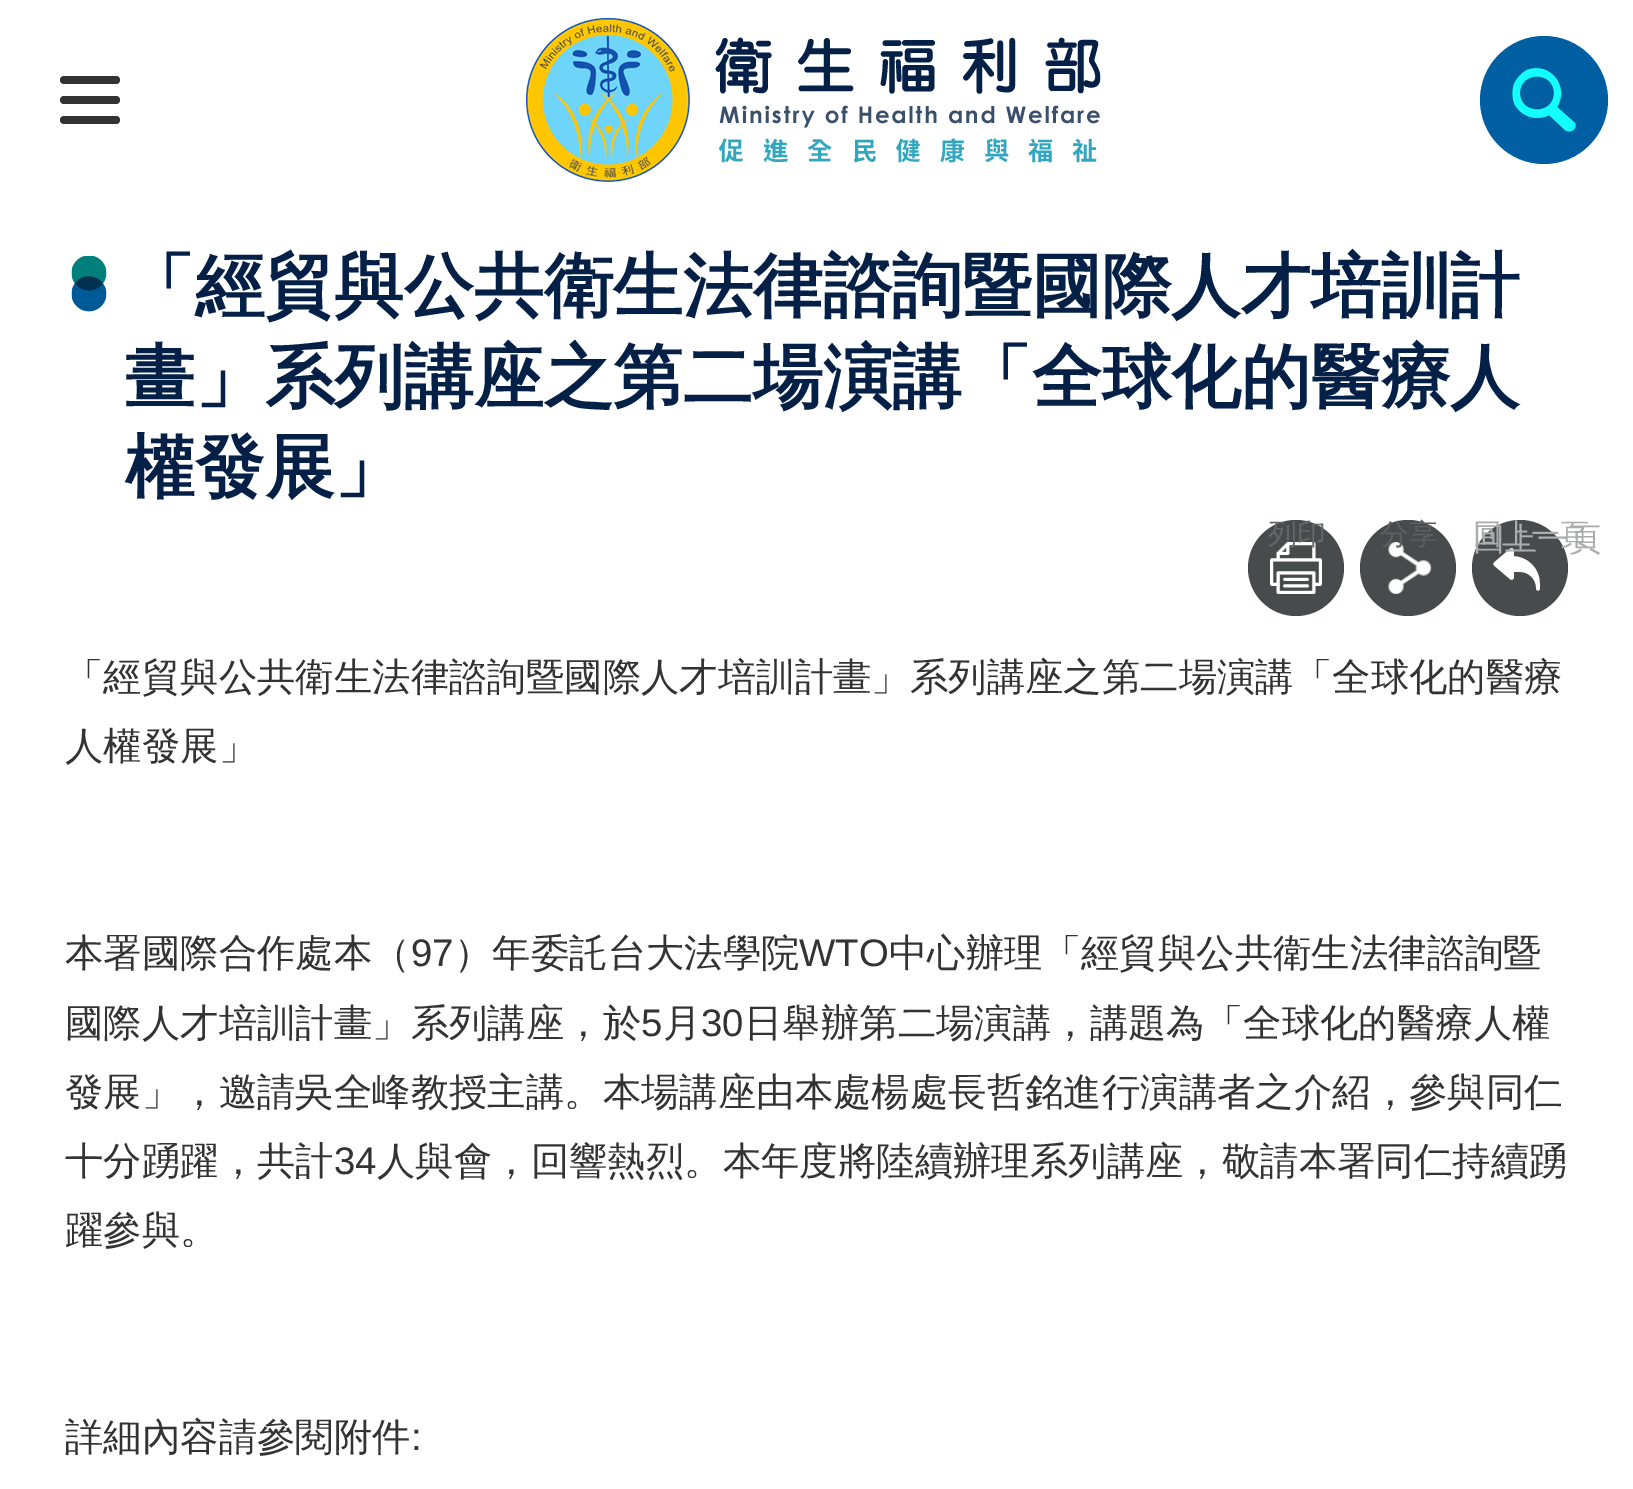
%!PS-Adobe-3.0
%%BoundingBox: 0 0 1633 1489
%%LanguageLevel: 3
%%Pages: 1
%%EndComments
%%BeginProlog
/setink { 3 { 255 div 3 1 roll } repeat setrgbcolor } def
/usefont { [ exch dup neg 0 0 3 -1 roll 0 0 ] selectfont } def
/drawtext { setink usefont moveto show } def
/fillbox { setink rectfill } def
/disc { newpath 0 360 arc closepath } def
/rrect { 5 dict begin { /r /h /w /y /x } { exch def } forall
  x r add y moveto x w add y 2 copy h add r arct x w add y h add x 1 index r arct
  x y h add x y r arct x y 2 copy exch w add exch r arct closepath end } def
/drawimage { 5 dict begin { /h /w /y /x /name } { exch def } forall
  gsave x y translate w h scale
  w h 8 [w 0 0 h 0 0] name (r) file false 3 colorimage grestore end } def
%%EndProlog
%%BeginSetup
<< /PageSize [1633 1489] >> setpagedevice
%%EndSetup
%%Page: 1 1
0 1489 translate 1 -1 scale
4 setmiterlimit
0 0 1633 1489 255 255 255 fillbox
51 51 51 setink
60 116 60 8 4 rrect fill
60 76 60 8 4 rrect fill
60 96 60 8 4 rrect fill
(assets/img1.rgb) 526 18 575 164 drawimage
0 94 162 setink
1544 100 64 disc fill
20 255 255 setink
1565 130 moveto 1549 115 lineto 1536 122 1520 116 1514 103 curveto 1512 97 1512 90 1514 84 curveto 1517 78 1521 73 1527 70 curveto 1550 61 1570 87 1557 107 curveto 1575 123 lineto 1578 129 1570 134 1565 130 curveto closepath 1520 93 moveto 1520 115 1554 115 1554 93 curveto 1554 71 1520 71 1520 93 curveto closepath eofill
(assets/img2.rgb) 71 256 36 56 drawimage
(「經貿與公共衛生法律諮詢暨國際人才培訓計) 125 310 /WenQuanYiZenHei-Bold 69.75 4 32 71 drawtext
(畫」系列講座之第二場演講「全球化的醫療人) 125 401 /WenQuanYiZenHei-Bold 69.75 4 32 71 drawtext
(權發展」) 125 491 /WenQuanYiZenHei-Bold 69.75 4 32 71 drawtext
71 75 76 setink
1296 568 48 disc fill
(assets/img3.rgb) 1270 542 52 52 drawimage
(列印) 1268 544 /WenQuanYiZenHei-Medium 29 100 103 104 drawtext
71 75 76 setink
1408 568 48 disc fill
(assets/img4.rgb) 1388 542 44 52 drawimage
(分享) 1380 544 /WenQuanYiZenHei-Medium 29 93 96 97 drawtext
71 75 76 setink
1520 568 48 disc fill
(assets/img5.rgb) 1493 548 47 43 drawimage
(回上一頁) 1473 550 /WenQuanYiZenHei-Medium 32 170 172 173 drawtext
(回上一頁) 1473 544 /WenQuanYiZenHei-Medium 29 170 172 173 drawtext
(「經貿與公共衛生法律諮詢暨國際人才培訓計畫」系列講座之第二場演講「全球化的醫療) 65 690 /WenQuanYiZenHei-Medium 38.4 51 51 51 drawtext
(人權發展」) 65 759 /WenQuanYiZenHei-Medium 38.4 51 51 51 drawtext
(本署國際合作處本（) 65 966 /WenQuanYiZenHei-Medium 38.4 51 51 51 drawtext
(97) 411 966 /LiberationSans-Regular 38.4 51 51 51 drawtext
(）年委託台大法學院) 454 966 /WenQuanYiZenHei-Medium 38.4 51 51 51 drawtext
(WTO) 799 966 /LiberationSans-Regular 38.4 51 51 51 drawtext
(中心辦理「經貿與公共衛生法律諮詢暨) 889 966 /WenQuanYiZenHei-Medium 38.4 51 51 51 drawtext
(國際人才培訓計畫」系列講座，於) 65 1036 /WenQuanYiZenHei-Medium 38.4 51 51 51 drawtext
(5) 641 1036 /LiberationSans-Regular 38.4 51 51 51 drawtext
(月) 663 1036 /WenQuanYiZenHei-Medium 38.4 51 51 51 drawtext
(30) 701 1036 /LiberationSans-Regular 38.4 51 51 51 drawtext
(日舉辦第二場演講，講題為「全球化的醫療人權) 744 1036 /WenQuanYiZenHei-Medium 38.4 51 51 51 drawtext
(發展」，邀請吳全峰教授主講。本場講座由本處楊處長哲銘進行演講者之介紹，參與同仁) 65 1105 /WenQuanYiZenHei-Medium 38.4 51 51 51 drawtext
(十分踴躍，共計) 65 1174 /WenQuanYiZenHei-Medium 38.4 51 51 51 drawtext
(34) 334 1174 /LiberationSans-Regular 38.4 51 51 51 drawtext
(人與會，回響熱烈。本年度將陸續辦理系列講座，敬請本署同仁持續踴) 377 1174 /WenQuanYiZenHei-Medium 38.4 51 51 51 drawtext
(躍參與。) 65 1243 /WenQuanYiZenHei-Medium 38.4 51 51 51 drawtext
(詳細內容請參閱附件) 65 1450 /WenQuanYiZenHei-Medium 38.4 51 51 51 drawtext
(:) 411 1450 /LiberationSans-Regular 38.4 51 51 51 drawtext
showpage
%%EOF
